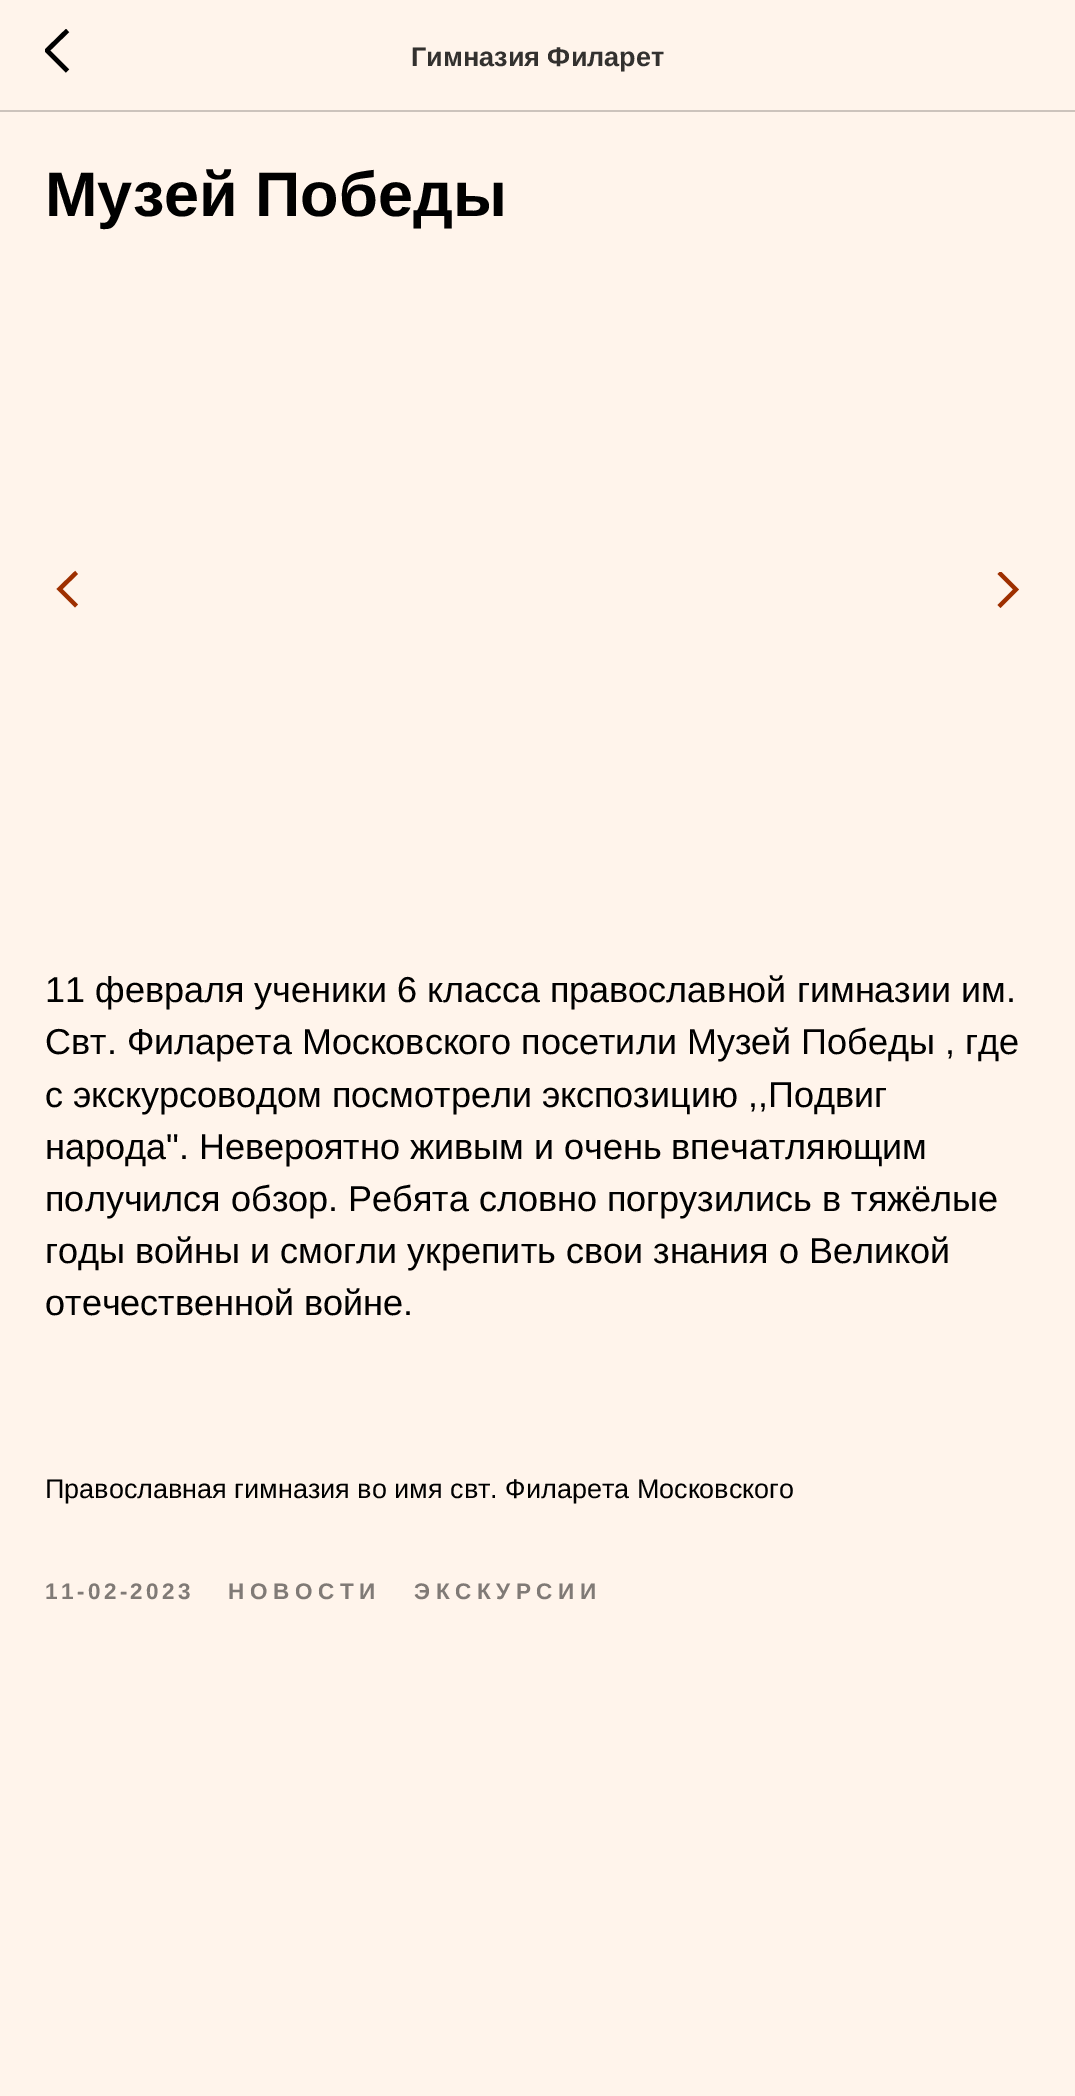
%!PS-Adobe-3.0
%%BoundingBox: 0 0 1075 2096
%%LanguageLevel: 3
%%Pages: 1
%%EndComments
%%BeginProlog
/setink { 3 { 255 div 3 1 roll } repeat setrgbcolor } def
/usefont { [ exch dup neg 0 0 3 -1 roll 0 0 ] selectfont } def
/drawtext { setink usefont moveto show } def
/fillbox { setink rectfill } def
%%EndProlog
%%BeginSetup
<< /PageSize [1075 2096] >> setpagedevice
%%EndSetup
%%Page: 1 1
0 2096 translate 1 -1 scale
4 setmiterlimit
0 0 1075 2096 255 244 235 fillbox
0 110 1075 2 204 195 188 fillbox
gsave
45 29 25 45 rectclip
0 0 0 setink
4.5 setlinewidth
67.5 71 moveto 47 50.5 lineto 67.5 30.5 lineto stroke
grestore
(Гимназия Филарет) 411 66 /LiberationSans-Bold 27 51 49 47 drawtext
(Музей Победы) 45 216 /LiberationSans-Bold 63 0 0 0 drawtext
158 47 0 setink
4.2 setlinewidth
76.5 606 moveto 59.5 589 lineto 76.5 572.5 lineto stroke
gsave
997 572 22 38 rectclip
999 572.5 moveto 1016 589.5 lineto 999 606.5 lineto stroke
grestore
(11 февраля ученики 6 класса православной гимназии им.) 45 1002 /LiberationSans-Regular 36 0 0 0 drawtext
(Свт. Филарета Московского посетили Музей Победы , где) 45 1054 /LiberationSans-Regular 36 0 0 0 drawtext
(с экскурсоводом посмотрели экспозицию ,,Подвиг) 45 1107 /LiberationSans-Regular 36 0 0 0 drawtext
(народа". Невероятно живым и очень впечатляющим) 45 1159 /LiberationSans-Regular 36 0 0 0 drawtext
(получился обзор. Ребята словно погрузились в тяжёлые) 45 1211 /LiberationSans-Regular 36 0 0 0 drawtext
(годы войны и смогли укрепить свои знания о Великой) 45 1263 /LiberationSans-Regular 36 0 0 0 drawtext
(отечественной войне.) 45 1315 /LiberationSans-Regular 36 0 0 0 drawtext
(Православная гимназия во имя свт. Филарета Московского) 45 1498 /LiberationSans-Regular 27 0 0 0 drawtext
/LiberationSans-Bold 22.5 usefont
128 122 118 setink
45 1599 moveto 3.4 0 (11-02-2023) ashow
228 1599 moveto 5.6 0 (НОВОСТИ) ashow
414 1599 moveto 5.6 0 (ЭКСКУРСИИ) ashow
showpage
%%EOF
